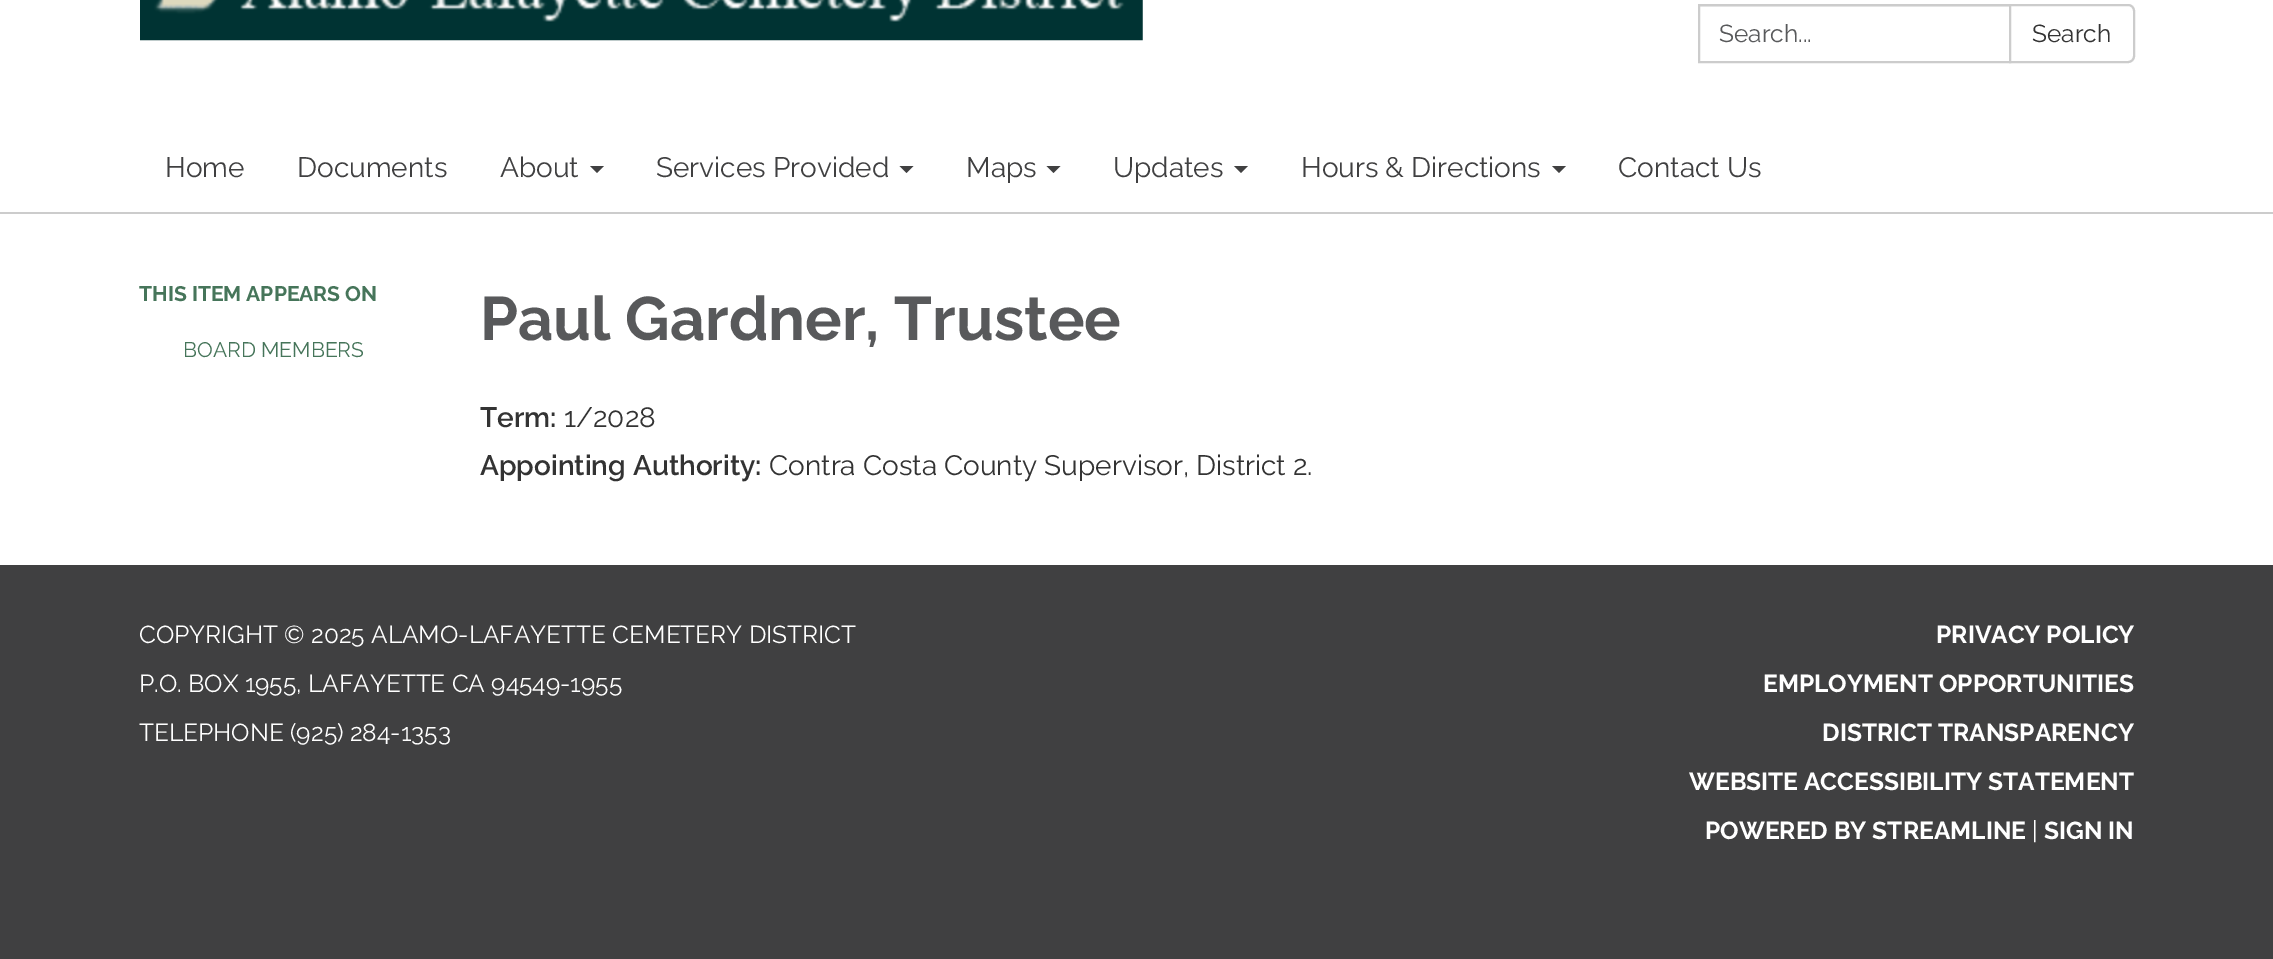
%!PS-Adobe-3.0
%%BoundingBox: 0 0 2273 959
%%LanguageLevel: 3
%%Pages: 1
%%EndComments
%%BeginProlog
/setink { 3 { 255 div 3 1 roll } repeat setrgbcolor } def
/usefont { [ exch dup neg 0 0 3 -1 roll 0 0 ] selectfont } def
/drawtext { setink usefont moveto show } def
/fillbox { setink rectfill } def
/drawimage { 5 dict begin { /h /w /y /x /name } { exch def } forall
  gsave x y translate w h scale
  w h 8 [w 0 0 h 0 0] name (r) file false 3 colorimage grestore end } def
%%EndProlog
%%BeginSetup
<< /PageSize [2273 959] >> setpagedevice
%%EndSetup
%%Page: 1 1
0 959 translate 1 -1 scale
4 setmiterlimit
0 0 2273 959 64 64 65 fillbox
0 0 2273 212 255 255 255 fillbox
(assets/img1.rgb) 140 0 1003 41 drawimage
1699 6 310 1 236 236 236 fillbox
204 204 204 setink
2 setlinewidth
1699 5 311 57 rectstroke
(Search...) 1719 42 /Raleway-Regular 24.5 88 89 91 drawtext
255 255 255 setink
2010 5 moveto 2128 5 lineto 2131.5 5 2134 7.5 2134 11 curveto 2134 56 lineto 2134 59.5 2131.5 62 2128 62 curveto 2010 62 lineto closepath gsave fill grestore
204 204 204 setink
stroke
(Search) 2032 42 /Raleway-Regular 24.5 51 51 51 drawtext
(Home) 165 177 /Raleway-Regular 28 64 64 65 drawtext
(Documents) 297 177 /Raleway-Regular 28 64 64 65 drawtext
(About) 500 177 /Raleway-Regular 28 64 64 65 drawtext
590 166 moveto 604 166 lineto 597 173 lineto closepath fill
(Services Provided) 656 177 /Raleway-Regular 28 64 64 65 drawtext
899.5 166 moveto 913.5 166 lineto 906.5 173 lineto closepath fill
(Maps) 966 177 /Raleway-Regular 28 64 64 65 drawtext
1046.5 166 moveto 1060.5 166 lineto 1053.5 173 lineto closepath fill
(Updates) 1113 177 /Raleway-Regular 28 64 64 65 drawtext
1234 166 moveto 1248 166 lineto 1241 173 lineto closepath fill
(Hours & Directions) 1301 177 /Raleway-Regular 28 64 64 65 drawtext
1552 166 moveto 1566 166 lineto 1559 173 lineto closepath fill
(Contact Us) 1618 177 /Raleway-Regular 28 64 64 65 drawtext
0 214 2273 351 255 255 255 fillbox
0 212 2273 2 204 204 204 fillbox
(THIS ITEM APPEARS ON) 139 301 /Raleway-Bold 21 70 117 90 drawtext
(BOARD MEMBERS) 183 357 /Raleway-Regular 21 70 117 90 drawtext
(Paul Gardner, Trustee) 480 340 /Raleway-Bold 61.25 88 89 91 drawtext
(Term:) 480 427 /Raleway-SemiBold 28 51 51 51 drawtext
(1/2028) 564 427 /Raleway-Regular 28 51 51 51 drawtext
(Appointing Authority:) 480 475 /Raleway-SemiBold 28 51 51 51 drawtext
(Contra Costa County Supervisor, District 2.) 769 475 /Raleway-Regular 28 51 51 51 drawtext
(COPYRIGHT © 2025 ALAMO-LAFAYETTE CEMETERY DISTRICT) 139 643 /Raleway-Regular 24.5 255 255 255 drawtext
(P.O. BOX 1955, LAFAYETTE CA 94549-1955) 139 692 /Raleway-Regular 24.5 255 255 255 drawtext
(TELEPHONE \(925\) 284-1353) 139 741 /Raleway-Regular 24.5 255 255 255 drawtext
(PRIVACY POLICY) 1936 643 /Raleway-Bold 24.5 255 255 255 drawtext
(EMPLOYMENT OPPORTUNITIES) 1763 692 /Raleway-Bold 24.5 255 255 255 drawtext
(DISTRICT TRANSPARENCY) 1822 741 /Raleway-Bold 24.5 255 255 255 drawtext
(WEBSITE ACCESSIBILITY STATEMENT) 1689 790 /Raleway-Bold 24.5 255 255 255 drawtext
(POWERED BY STREAMLINE) 1705 839 /Raleway-Bold 24.5 255 255 255 drawtext
(|) 2032 839 /Raleway-Regular 24.5 255 255 255 drawtext
(SIGN IN) 2044 839 /Raleway-Bold 24.5 255 255 255 drawtext
showpage
%%EOF
